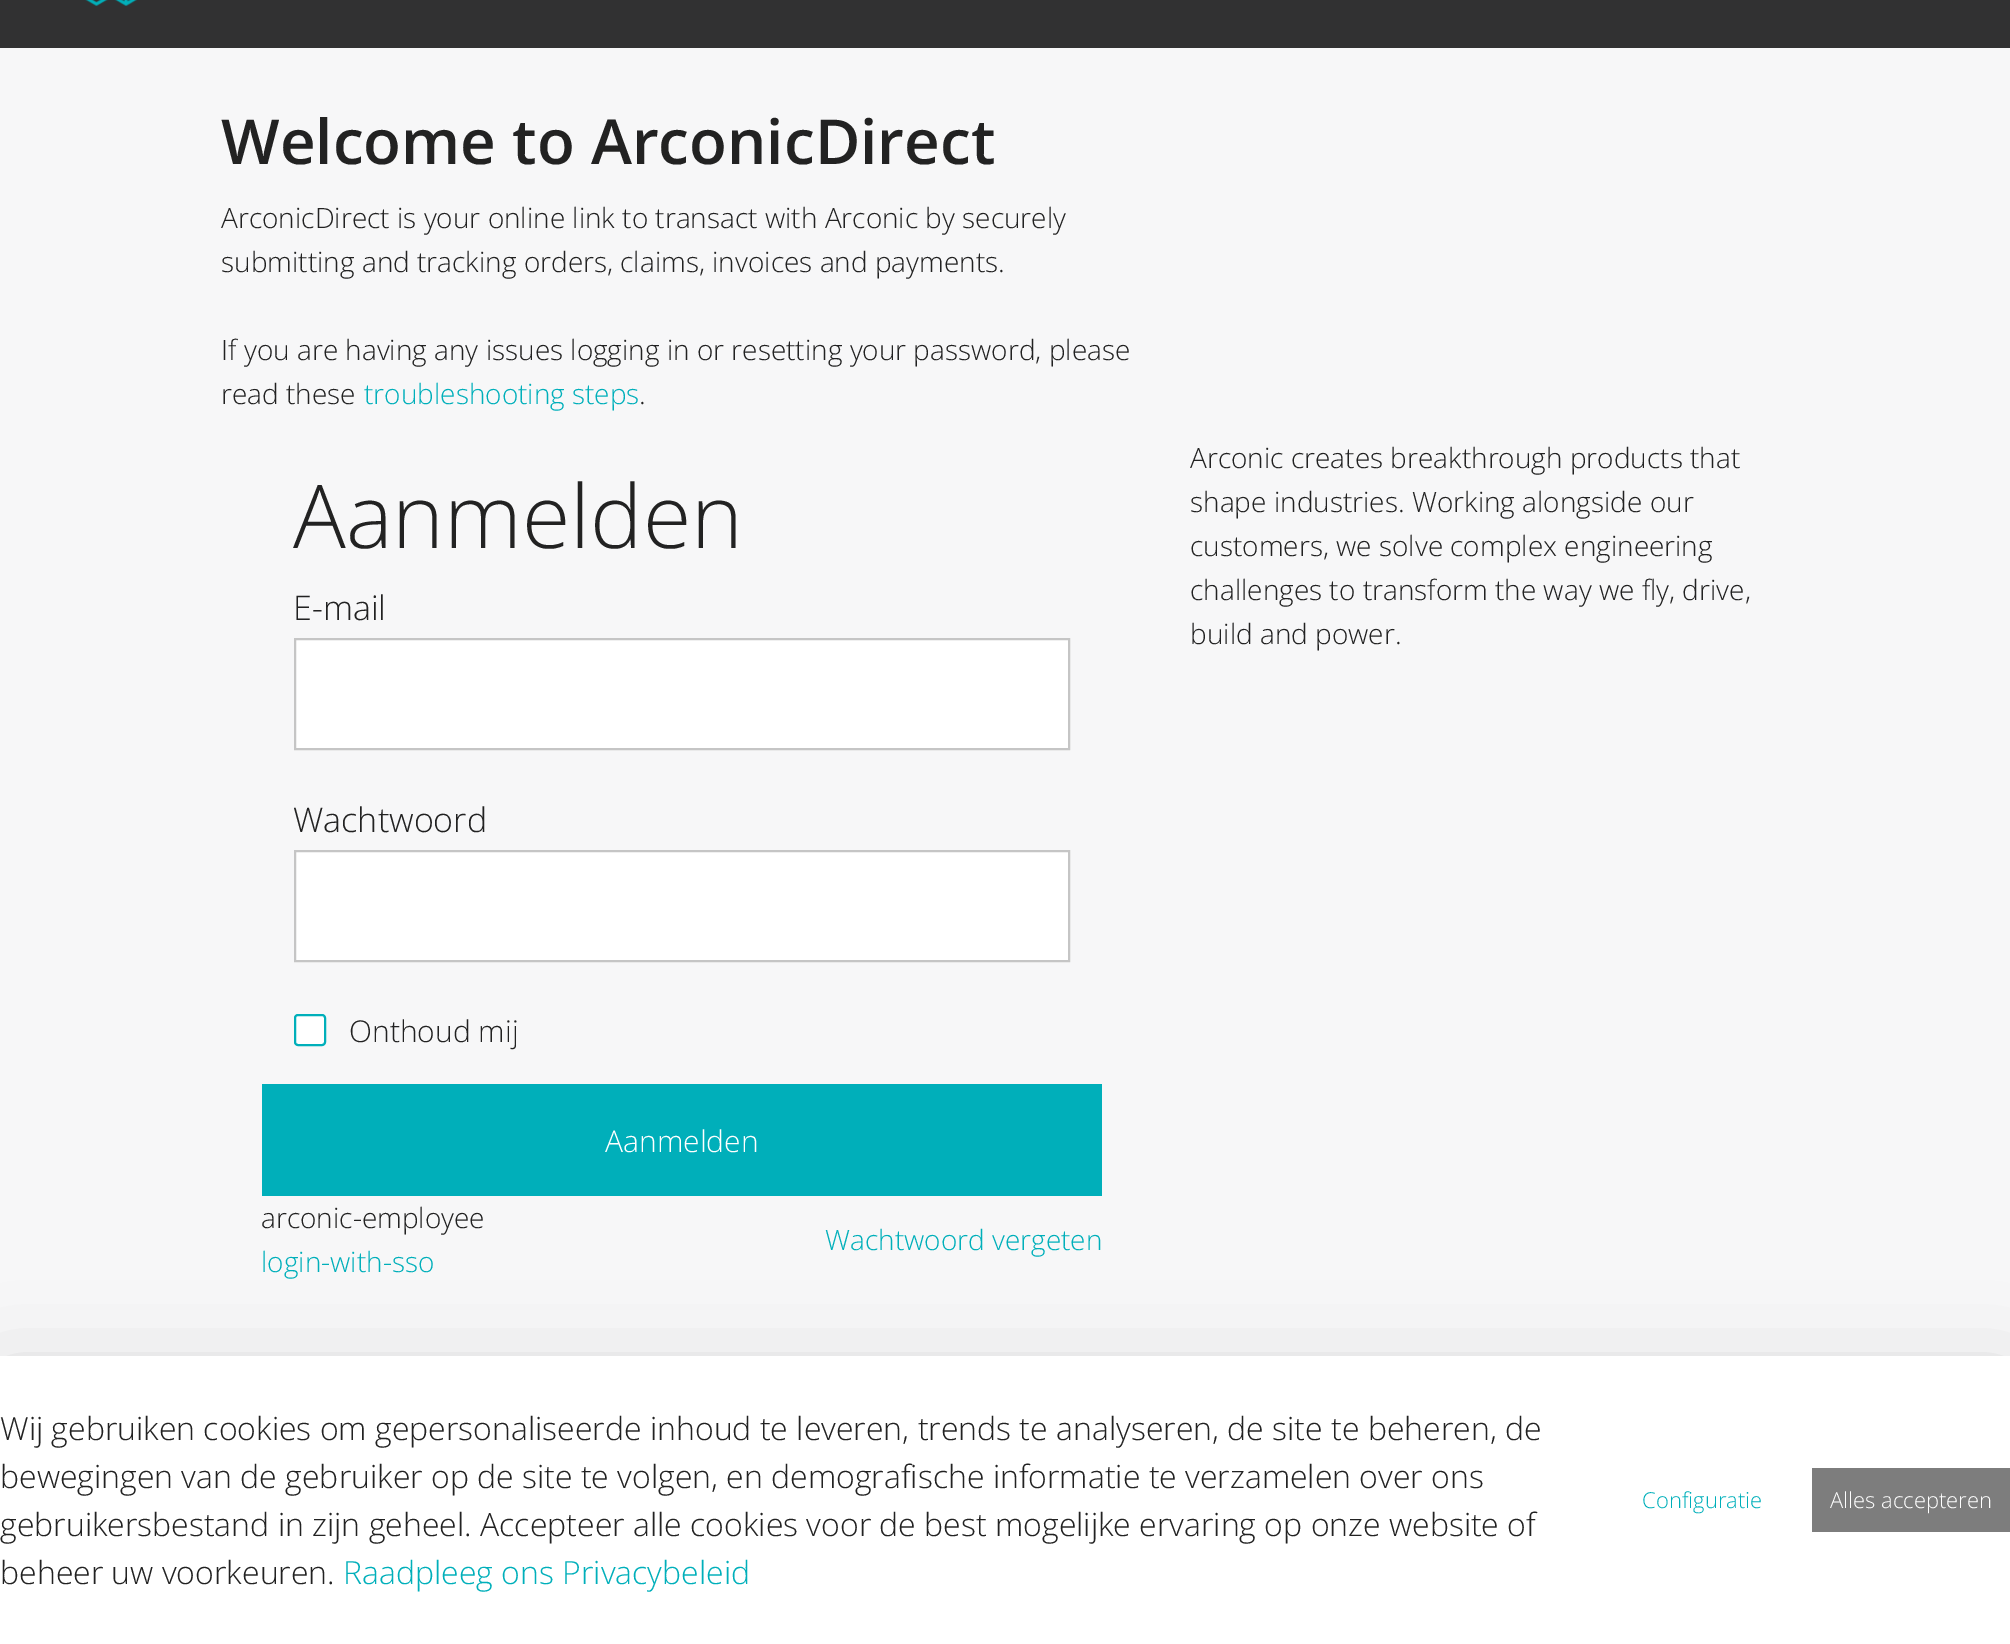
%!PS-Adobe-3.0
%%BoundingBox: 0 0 2010 1644
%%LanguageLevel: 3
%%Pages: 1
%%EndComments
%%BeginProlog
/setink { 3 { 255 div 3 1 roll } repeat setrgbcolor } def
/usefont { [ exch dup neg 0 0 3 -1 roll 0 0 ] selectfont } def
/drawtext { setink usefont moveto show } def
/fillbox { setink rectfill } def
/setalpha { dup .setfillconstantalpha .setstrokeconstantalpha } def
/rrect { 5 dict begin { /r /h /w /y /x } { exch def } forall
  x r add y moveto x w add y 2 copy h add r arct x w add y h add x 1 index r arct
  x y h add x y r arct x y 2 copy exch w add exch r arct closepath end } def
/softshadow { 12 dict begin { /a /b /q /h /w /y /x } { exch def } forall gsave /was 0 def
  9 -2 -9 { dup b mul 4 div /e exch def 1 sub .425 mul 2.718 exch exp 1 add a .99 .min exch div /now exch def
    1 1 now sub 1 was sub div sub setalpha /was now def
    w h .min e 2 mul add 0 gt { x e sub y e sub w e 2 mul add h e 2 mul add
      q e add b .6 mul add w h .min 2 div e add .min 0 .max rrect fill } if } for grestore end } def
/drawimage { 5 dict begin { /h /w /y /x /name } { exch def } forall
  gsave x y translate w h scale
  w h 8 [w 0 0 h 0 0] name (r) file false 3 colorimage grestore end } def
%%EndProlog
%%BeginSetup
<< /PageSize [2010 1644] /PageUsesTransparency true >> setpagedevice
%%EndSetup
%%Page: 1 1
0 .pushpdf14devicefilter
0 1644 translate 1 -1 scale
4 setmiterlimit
0 0 2010 1644 247 247 248 fillbox
0 0 2010 48 49 49 50 fillbox
(assets/img1.rgb) 85 0 52 6 drawimage
(Welcome to ArconicDirect) 221 164 /OpenSans-SemiBold 62 34 34 34 drawtext
(ArconicDirect is your online link to transact with Arconic by securely) 221 228 /OpenSans-Light 28 34 34 34 drawtext
(submitting and tracking orders, claims, invoices and payments.) 221 272 /OpenSans-Light 28 34 34 34 drawtext
(If you are having any issues logging in or resetting your password, please) 221 360 /OpenSans-Light 28 34 34 34 drawtext
(read these) 221 404 /OpenSans-Light 28 34 34 34 drawtext
(troubleshooting steps) 364 404 /OpenSans-Light 28 0 175 186 drawtext
(.) 639 404 /OpenSans-Light 28 34 34 34 drawtext
(Aanmelden) 293 548 /OpenSans-Light 88 34 34 34 drawtext
(E-mail) 293 620 /OpenSans-Light 34 34 34 34 drawtext
255 255 255 setink
295 639 moveto 1069 639 lineto 1069 749 lineto 295 749 lineto closepath gsave fill grestore
197 197 197 setink
2 setlinewidth
stroke
(Wachtwoord) 293 832 /OpenSans-Light 34 34 34 34 drawtext
255 255 255 setink
295 851 moveto 1069 851 lineto 1069 961 lineto 295 961 lineto closepath gsave fill grestore
197 197 197 setink
stroke
255 255 255 setink
295 1015 30 30 3 rrect gsave fill grestore
0 175 186 setink
stroke
(Onthoud mij) 349 1042 /OpenSans-Light 30 34 34 34 drawtext
262 1084 840 112 0 175 186 fillbox
(Aanmelden) 605 1152 /OpenSans-Light 30 255 255 255 drawtext
(arconic-employee) 261 1228 /OpenSans-Light 28 34 34 34 drawtext
(login-with-sso) 261 1272 /OpenSans-Light 28 0 175 186 drawtext
(Wachtwoord vergeten) 825 1250 /OpenSans-Light 28 0 175 186 drawtext
(Arconic creates breakthrough products that) 1190 468 /OpenSans-Light 28 34 34 34 drawtext
(shape industries. Working alongside our) 1190 512 /OpenSans-Light 28 34 34 34 drawtext
(customers, we solve complex engineering) 1190 556 /OpenSans-Light 28 34 34 34 drawtext
(challenges to transform the way we fly, drive,) 1190 600 /OpenSans-Light 28 34 34 34 drawtext
(build and power.) 1190 644 /OpenSans-Light 28 34 34 34 drawtext
0 0 0 setink
0 1388 2010 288 0 48 0.18 softshadow
0 1356 2010 288 255 255 255 fillbox
(Wij gebruiken cookies om gepersonaliseerde inhoud te leveren, trends te analyseren, de site te beheren, de) 0 1440 /OpenSans-Light 32 34 34 34 drawtext
(bewegingen van de gebruiker op de site te volgen, en demografische informatie te verzamelen over ons) 0 1488 /OpenSans-Light 32 34 34 34 drawtext
(gebruikersbestand in zijn geheel. Accepteer alle cookies voor de best mogelijke ervaring op onze website of) 0 1536 /OpenSans-Light 32 34 34 34 drawtext
(beheer uw voorkeuren.) 0 1584 /OpenSans-Light 32 34 34 34 drawtext
(Raadpleeg ons Privacybeleid) 343 1584 /OpenSans-Light 32 0 175 186 drawtext
(Configuratie) 1642 1508 /OpenSans-Light 22 0 175 186 drawtext
1812 1468 198 64 125 125 125 fillbox
(Alles accepteren) 1830 1508 /OpenSans-Light 22 255 255 255 drawtext
.poppdf14devicefilter showpage
%%EOF
